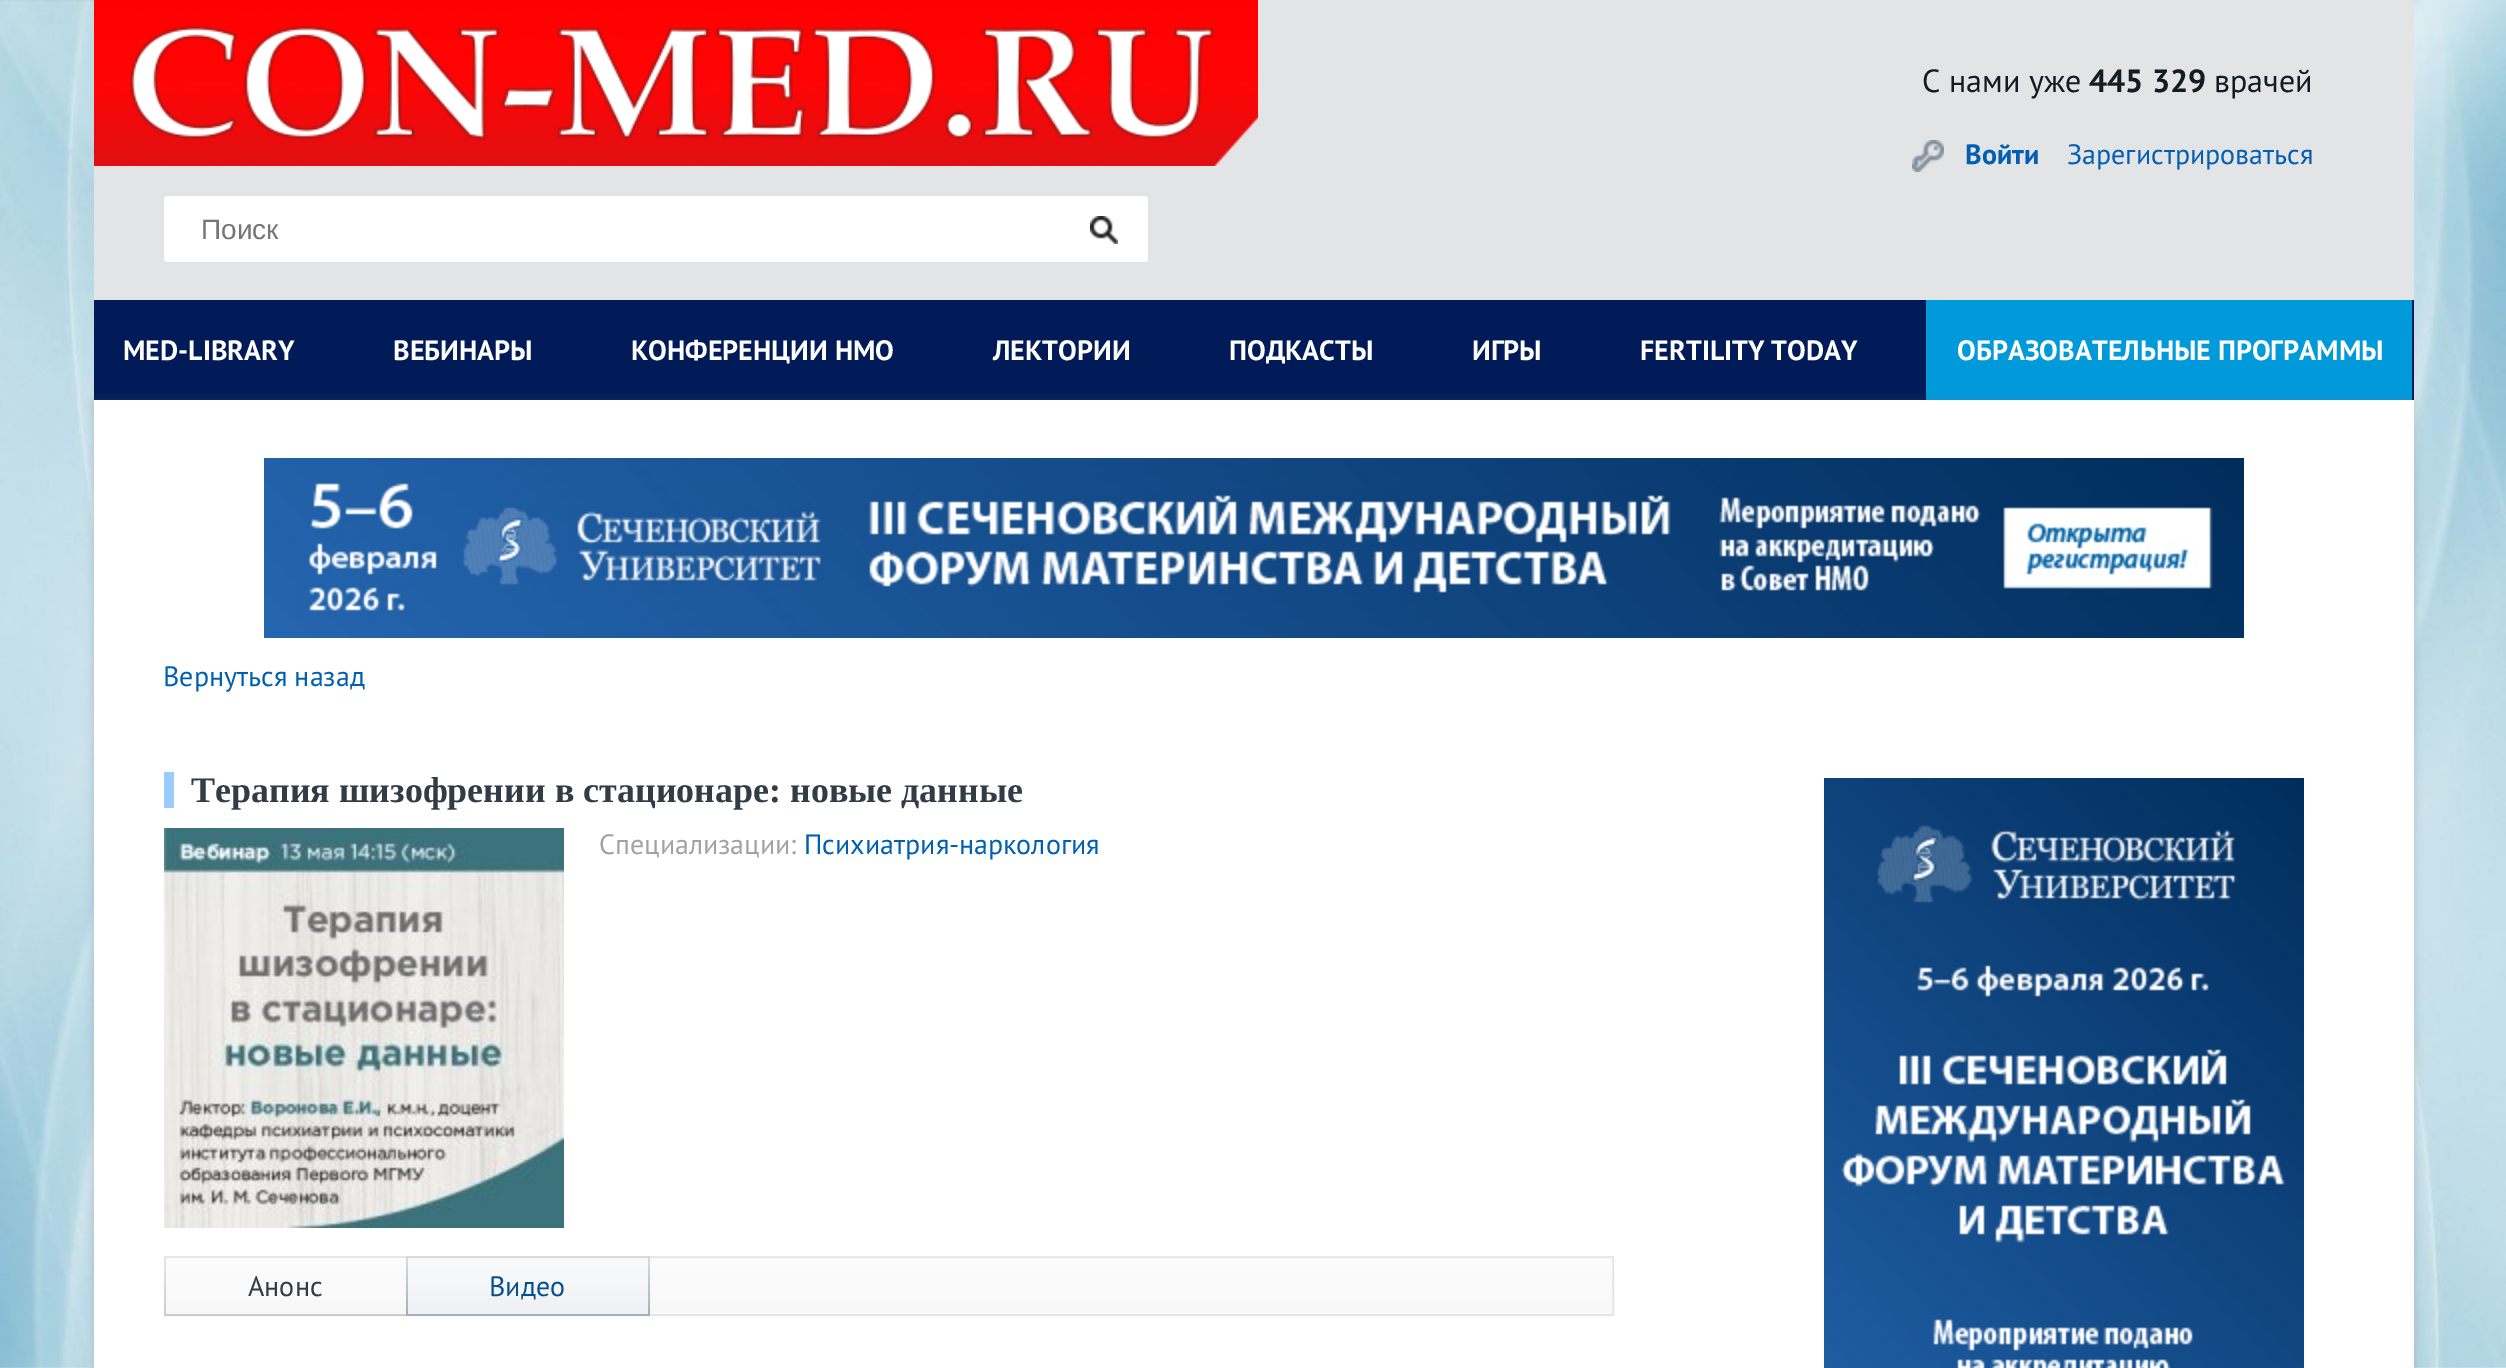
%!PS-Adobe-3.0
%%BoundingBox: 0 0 2506 1368
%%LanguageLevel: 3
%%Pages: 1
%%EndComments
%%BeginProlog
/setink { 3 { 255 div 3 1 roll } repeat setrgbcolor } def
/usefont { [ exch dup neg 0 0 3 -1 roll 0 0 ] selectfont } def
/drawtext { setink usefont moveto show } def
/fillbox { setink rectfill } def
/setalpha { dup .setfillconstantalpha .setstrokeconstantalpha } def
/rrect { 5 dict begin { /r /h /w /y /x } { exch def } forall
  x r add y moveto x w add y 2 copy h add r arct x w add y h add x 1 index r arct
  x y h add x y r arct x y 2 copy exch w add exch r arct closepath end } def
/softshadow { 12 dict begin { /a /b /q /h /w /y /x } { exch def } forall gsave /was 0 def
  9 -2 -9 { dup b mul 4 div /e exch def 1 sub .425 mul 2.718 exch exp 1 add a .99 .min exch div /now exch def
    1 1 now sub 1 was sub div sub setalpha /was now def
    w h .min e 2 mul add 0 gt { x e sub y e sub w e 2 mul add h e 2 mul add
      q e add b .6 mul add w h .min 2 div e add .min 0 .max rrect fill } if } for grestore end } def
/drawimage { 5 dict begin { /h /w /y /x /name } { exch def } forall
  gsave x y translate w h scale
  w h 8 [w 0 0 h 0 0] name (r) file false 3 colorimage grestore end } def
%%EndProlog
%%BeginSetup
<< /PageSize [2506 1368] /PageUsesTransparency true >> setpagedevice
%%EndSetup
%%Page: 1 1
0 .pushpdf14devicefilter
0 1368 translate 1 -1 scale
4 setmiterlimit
0 0 2506 1368 255 255 255 fillbox
(assets/img1.rgb) 0 0 2506 1368 drawimage
94 0 2320 300 227 228 230 fillbox
(С нами уже) 1922 92 /PTSans-Regular 32 20 27 34 drawtext
(445 329) 2089 92 /PTSans-Bold 32 20 27 34 drawtext
(врачей) 2214 92 /PTSans-Regular 32 20 27 34 drawtext
(assets/img2.rgb) 1912 140 32 32 drawimage
(Войти) 1965 164 /PTSans-Bold 28 0 95 176 drawtext
(Зарегистрироваться) 2067 164 /PTSans-Regular 28 0 95 176 drawtext
(assets/img3.rgb) 94 0 1164 166 drawimage
255 255 255 setink
164 196 984 66 4 rrect fill
(Поиск) 201 239 /LiberationSans-Regular 28 117 117 117 drawtext
255 255 255 setink
1060 196 88 66 4 rrect fill
(assets/img4.rgb) 1090 216 28 28 drawimage
94 300 2320 100 1 27 88 fillbox
(MED-LIBRARY) 123 360 /PTSans-Bold 28 255 255 255 drawtext
(ВЕБИНАРЫ) 393 360 /PTSans-Bold 28 255 255 255 drawtext
(КОНФЕРЕНЦИИ НМО) 631 360 /PTSans-Bold 28 255 255 255 drawtext
(ЛЕКТОРИИ) 993 360 /PTSans-Bold 28 255 255 255 drawtext
(ПОДКАСТЫ) 1229 360 /PTSans-Bold 28 255 255 255 drawtext
(ИГРЫ) 1472 360 /PTSans-Bold 28 255 255 255 drawtext
(FERTILITY TODAY) 1640 360 /PTSans-Bold 28 255 255 255 drawtext
1926 300 486 100 0 154 218 fillbox
(ОБРАЗОВАТЕЛЬНЫЕ ПРОГРАММЫ) 1957 360 /PTSans-Bold 28 255 255 255 drawtext
102 108 115 setink
94 402 2320 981 0 5 0.31 softshadow
94 400 2320 968 255 255 255 fillbox
(assets/img5.rgb) 264 458 1980 180 drawimage
(Вернуться назад) 163 686 /PTSans-Regular 28 0 95 176 drawtext
164 772 10 36 153 204 253 fillbox
(Терапия шизофрении в стационаре: новые данные) 191 802 /LiberationSerif-Bold 36 50 60 70 drawtext
(assets/img6.rgb) 164 828 400 400 drawimage
(Специализации:) 599 854 /PTSans-Regular 28 162 162 162 drawtext
(Психиатрия-наркология) 804 854 /PTSans-Regular 28 0 95 176 drawtext
gsave 650 1258 moveto 1612 1258 lineto 1612 1314 lineto 650 1314 lineto closepath clip newpath
<< /ShadingType 2 /ColorSpace /DeviceRGB /Coords [889 1258 889 1314] /Extend [true true] /Function << /FunctionType 2 /Domain [0 1] /C0 [0.988 0.988 0.988] /C1 [0.973 0.973 0.973] /N 1 >> >> shfill grestore
231 231 231 setink
2 setlinewidth
165 1257 1448 58 rectstroke
gsave 164 1258 moveto 406 1258 lineto 406 1316 lineto 164 1316 lineto closepath clip newpath
<< /ShadingType 2 /ColorSpace /DeviceRGB /Coords [286 1256 286 1316] /Extend [true true] /Function << /FunctionType 2 /Domain [0 1] /C0 [0.902 0.902 0.902] /C1 [0.796 0.796 0.796] /N 1 >> >> shfill grestore
gsave 166 1258 moveto 406 1258 lineto 406 1314 lineto 166 1314 lineto closepath clip newpath
<< /ShadingType 2 /ColorSpace /DeviceRGB /Coords [286 1258 286 1314] /Extend [true true] /Function << /FunctionType 2 /Domain [0 1] /C0 [0.988 0.988 0.988] /C1 [0.973 0.973 0.973] /N 1 >> >> shfill grestore
(Анонс) 248 1296 /PTSans-Regular 28 50 60 70 drawtext
gsave 406 1256 moveto 650 1256 lineto 650 1316 lineto 406 1316 lineto closepath clip newpath
<< /ShadingType 2 /ColorSpace /DeviceRGB /Coords [528 1256 528 1316] /Extend [true true] /Function << /FunctionType 2 /Domain [0 1] /C0 [0.863 0.863 0.863] /C1 [0.635 0.69 0.737] /N 1 >> >> shfill grestore
gsave 408 1258 moveto 648 1258 lineto 648 1314 lineto 408 1314 lineto closepath clip newpath
<< /ShadingType 2 /ColorSpace /DeviceRGB /Coords [528 1258 528 1314] /Extend [true true] /Function << /FunctionType 2 /Domain [0 1] /C0 [0.98 0.98 0.98] /C1 [0.933 0.945 0.961] /N 1 >> >> shfill grestore
(Видео) 489 1296 /PTSans-Regular 28 5 79 142 drawtext
(assets/img7.rgb) 1824 778 480 590 drawimage
.poppdf14devicefilter showpage
%%EOF
